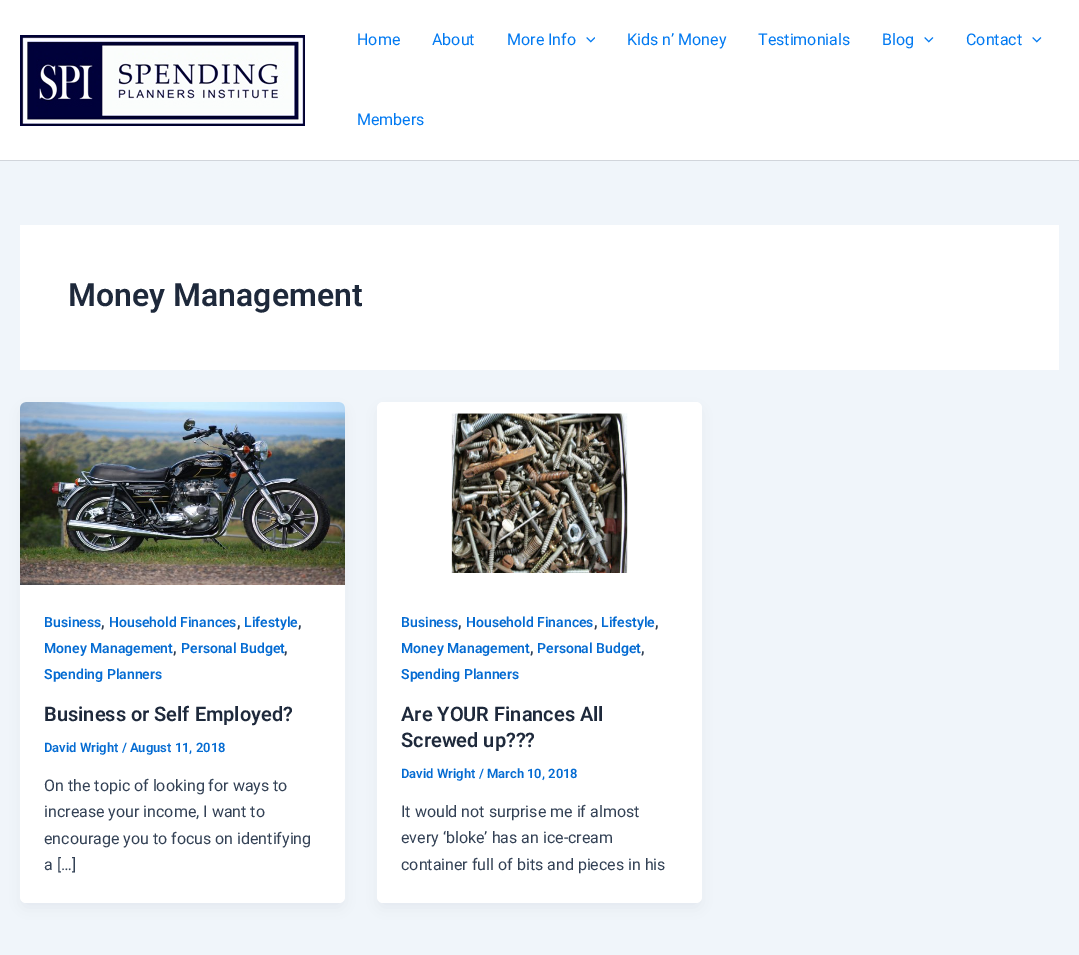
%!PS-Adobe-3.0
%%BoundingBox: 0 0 1079 955
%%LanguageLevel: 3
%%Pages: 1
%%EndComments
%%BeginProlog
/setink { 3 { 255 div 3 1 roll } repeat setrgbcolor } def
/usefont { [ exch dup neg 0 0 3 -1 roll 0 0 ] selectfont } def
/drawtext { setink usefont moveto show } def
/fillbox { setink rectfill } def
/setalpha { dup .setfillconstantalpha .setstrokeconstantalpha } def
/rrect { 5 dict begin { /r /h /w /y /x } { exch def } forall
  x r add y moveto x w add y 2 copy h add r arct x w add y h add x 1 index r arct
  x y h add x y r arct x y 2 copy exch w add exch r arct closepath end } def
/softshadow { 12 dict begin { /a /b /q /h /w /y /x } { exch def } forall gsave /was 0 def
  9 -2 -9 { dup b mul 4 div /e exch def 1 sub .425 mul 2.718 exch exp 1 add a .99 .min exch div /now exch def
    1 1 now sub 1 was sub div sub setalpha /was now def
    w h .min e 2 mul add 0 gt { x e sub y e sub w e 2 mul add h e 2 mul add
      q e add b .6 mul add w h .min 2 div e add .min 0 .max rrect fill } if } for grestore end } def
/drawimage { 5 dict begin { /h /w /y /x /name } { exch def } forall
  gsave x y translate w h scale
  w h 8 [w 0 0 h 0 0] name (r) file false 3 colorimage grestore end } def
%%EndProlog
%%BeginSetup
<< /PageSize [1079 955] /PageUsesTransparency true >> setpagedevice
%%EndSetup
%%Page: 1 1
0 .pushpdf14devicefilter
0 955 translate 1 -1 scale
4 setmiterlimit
0 0 1079 955 240 245 250 fillbox
0 0 1079 160 255 255 255 fillbox
0 160 1079 1 209 213 219 fillbox
(assets/img1.rgb) 20 35 285 91 drawimage
(Home) 357 45 /Roboto-Regular 16 1 121 241 drawtext
(About) 432 45 /Roboto-Regular 16 1 121 241 drawtext
(More Info) 507 45 /Roboto-Regular 16 1 121 241 drawtext
(assets/img2.rgb) 586 37 9 6 drawimage
(Kids n’ Money) 627 45 /Roboto-Regular 16 1 121 241 drawtext
(Testimonials) 758 45 /Roboto-Regular 16 1 121 241 drawtext
(Blog) 882 45 /Roboto-Regular 16 1 121 241 drawtext
(assets/img3.rgb) 924 37 10 6 drawimage
(Contact) 966 45 /Roboto-Regular 16 1 121 241 drawtext
(assets/img3.rgb) 1032 37 10 6 drawimage
(Members) 357 125 /Roboto-Regular 16 1 121 241 drawtext
20 225 1039 145 255 255 255 fillbox
(Money Management) 68 306 /Roboto-SemiBold 32 30 41 59 drawtext
16 24 40 setink
22 410 321 497 4 7.5 0.05 softshadow
255 255 255 setink
20 402 325 501 6 rrect fill
(assets/img4.rgb) 20 402 325 183 drawimage
(Business) 44 627 /Roboto-SemiBold 14 4 107 210 drawtext
(,) 101 627 /Roboto-SemiBold 16 51 65 85 drawtext
(Household Finances) 109 627 /Roboto-SemiBold 14 4 107 210 drawtext
(,) 237 627 /Roboto-SemiBold 16 51 65 85 drawtext
(Lifestyle) 244 627 /Roboto-SemiBold 14 4 107 210 drawtext
(,) 298 627 /Roboto-SemiBold 16 51 65 85 drawtext
(Money Management) 44 653 /Roboto-SemiBold 14 4 107 210 drawtext
(,) 173 653 /Roboto-SemiBold 16 51 65 85 drawtext
(Personal Budget) 181 653 /Roboto-SemiBold 14 4 107 210 drawtext
(,) 284 653 /Roboto-SemiBold 16 51 65 85 drawtext
(Spending Planners) 44 679 /Roboto-SemiBold 14 4 107 210 drawtext
(Business or Self Employed?) 44 721 /Roboto-SemiBold 20 30 41 59 drawtext
(David Wright / August 11, 2018) 44 752 /Roboto-SemiBold 13 4 107 210 drawtext
(On the topic of looking for ways to) 44 791 /Roboto-Regular 16 51 65 85 drawtext
(increase your income, I want to) 44 817 /Roboto-Regular 16 51 65 85 drawtext
(encourage you to focus on identifying) 44 844 /Roboto-Regular 16 51 65 85 drawtext
(a […]) 44 870 /Roboto-Regular 16 51 65 85 drawtext
16 24 40 setink
379 410 321 497 4 7.5 0.05 softshadow
255 255 255 setink
377 402 325 501 6 rrect fill
(assets/img5.rgb) 451 413 177 160 drawimage
(Business) 401 627 /Roboto-SemiBold 14 4 107 210 drawtext
(,) 458 627 /Roboto-SemiBold 16 51 65 85 drawtext
(Household Finances) 466 627 /Roboto-SemiBold 14 4 107 210 drawtext
(,) 594 627 /Roboto-SemiBold 16 51 65 85 drawtext
(Lifestyle) 601 627 /Roboto-SemiBold 14 4 107 210 drawtext
(,) 655 627 /Roboto-SemiBold 16 51 65 85 drawtext
(Money Management) 401 653 /Roboto-SemiBold 14 4 107 210 drawtext
(,) 530 653 /Roboto-SemiBold 16 51 65 85 drawtext
(Personal Budget) 537 653 /Roboto-SemiBold 14 4 107 210 drawtext
(,) 641 653 /Roboto-SemiBold 16 51 65 85 drawtext
(Spending Planners) 401 679 /Roboto-SemiBold 14 4 107 210 drawtext
(Are YOUR Finances All) 401 721 /Roboto-SemiBold 20 30 41 59 drawtext
(Screwed up???) 401 747 /Roboto-SemiBold 20 30 41 59 drawtext
(David Wright / March 10, 2018) 401 778 /Roboto-SemiBold 13 4 107 210 drawtext
(It would not surprise me if almost) 401 817 /Roboto-Regular 16 51 65 85 drawtext
(every ‘bloke’ has an ice-cream) 401 843 /Roboto-Regular 16 51 65 85 drawtext
(container full of bits and pieces in his) 401 870 /Roboto-Regular 16 51 65 85 drawtext
.poppdf14devicefilter showpage
%%EOF
